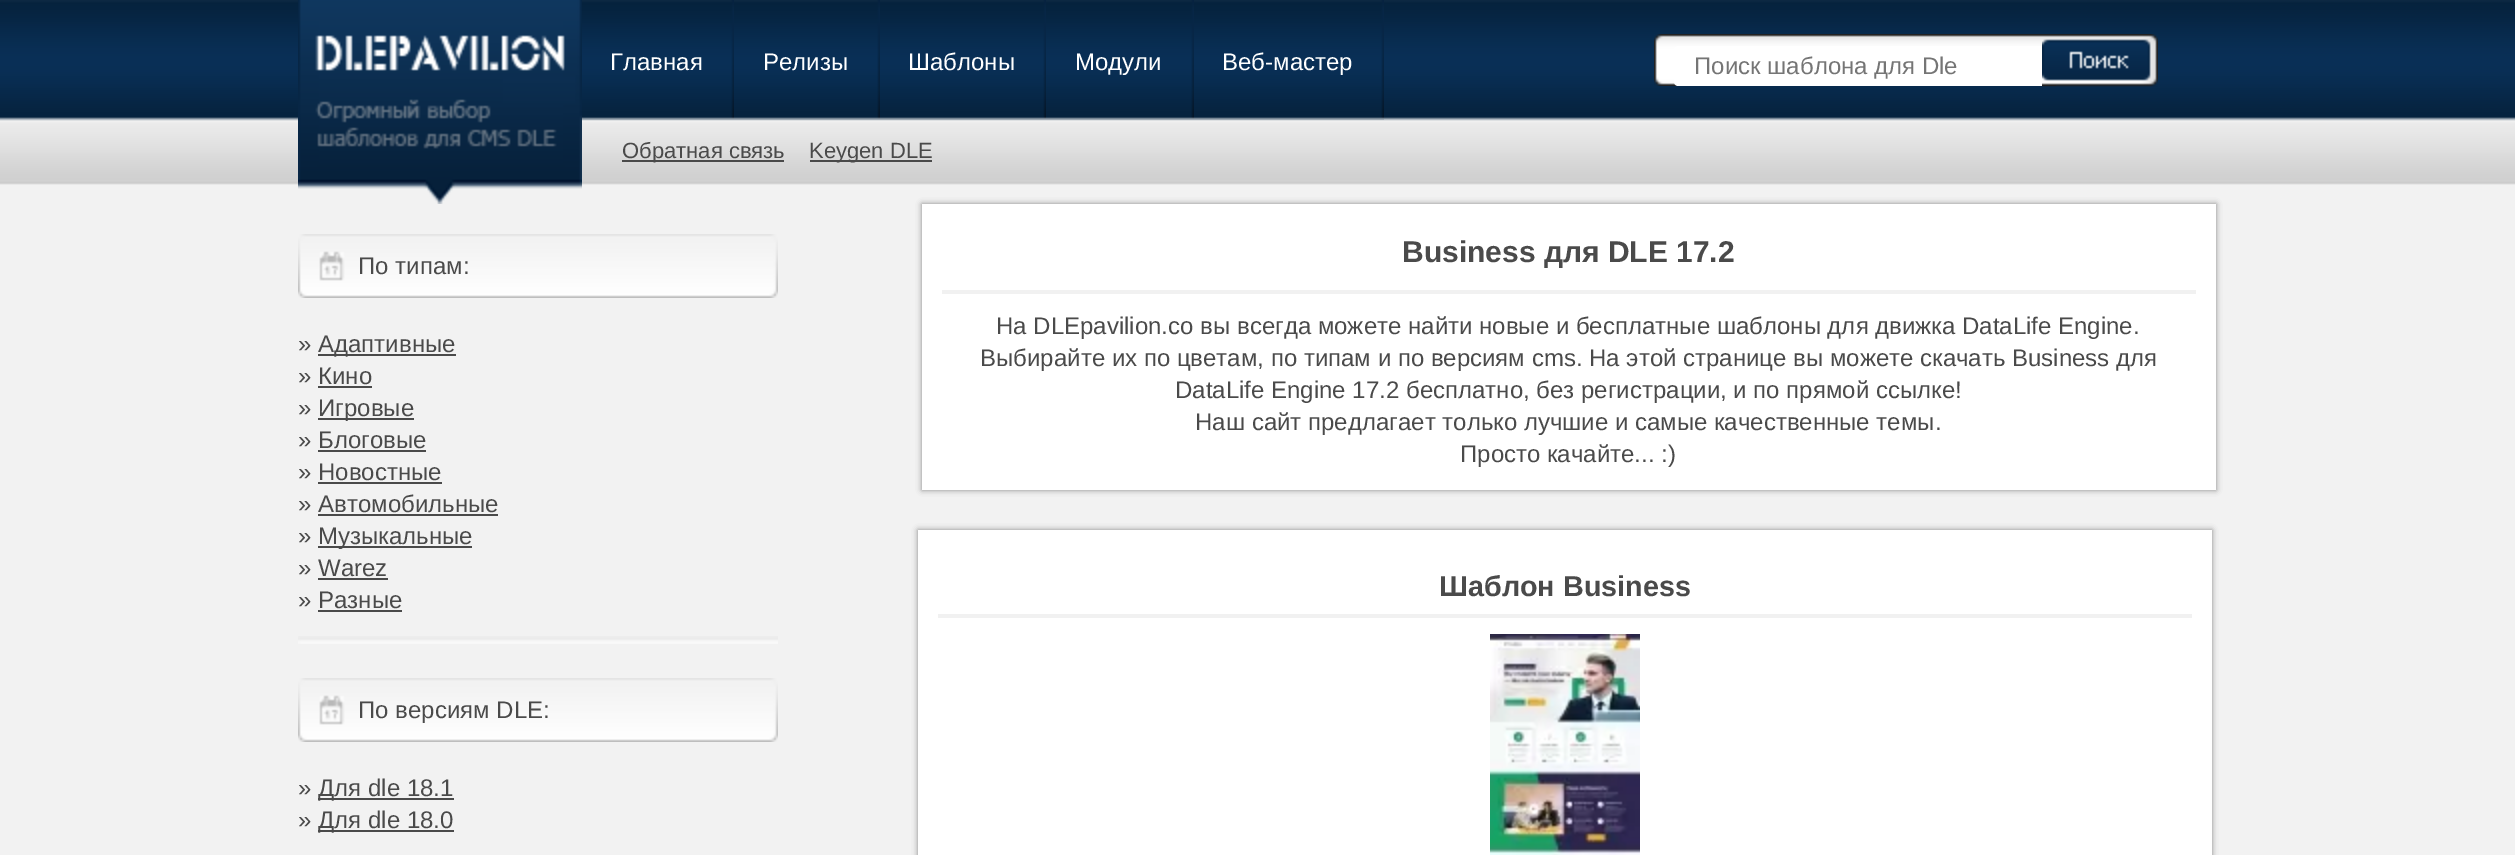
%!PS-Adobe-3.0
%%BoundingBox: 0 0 2515 855
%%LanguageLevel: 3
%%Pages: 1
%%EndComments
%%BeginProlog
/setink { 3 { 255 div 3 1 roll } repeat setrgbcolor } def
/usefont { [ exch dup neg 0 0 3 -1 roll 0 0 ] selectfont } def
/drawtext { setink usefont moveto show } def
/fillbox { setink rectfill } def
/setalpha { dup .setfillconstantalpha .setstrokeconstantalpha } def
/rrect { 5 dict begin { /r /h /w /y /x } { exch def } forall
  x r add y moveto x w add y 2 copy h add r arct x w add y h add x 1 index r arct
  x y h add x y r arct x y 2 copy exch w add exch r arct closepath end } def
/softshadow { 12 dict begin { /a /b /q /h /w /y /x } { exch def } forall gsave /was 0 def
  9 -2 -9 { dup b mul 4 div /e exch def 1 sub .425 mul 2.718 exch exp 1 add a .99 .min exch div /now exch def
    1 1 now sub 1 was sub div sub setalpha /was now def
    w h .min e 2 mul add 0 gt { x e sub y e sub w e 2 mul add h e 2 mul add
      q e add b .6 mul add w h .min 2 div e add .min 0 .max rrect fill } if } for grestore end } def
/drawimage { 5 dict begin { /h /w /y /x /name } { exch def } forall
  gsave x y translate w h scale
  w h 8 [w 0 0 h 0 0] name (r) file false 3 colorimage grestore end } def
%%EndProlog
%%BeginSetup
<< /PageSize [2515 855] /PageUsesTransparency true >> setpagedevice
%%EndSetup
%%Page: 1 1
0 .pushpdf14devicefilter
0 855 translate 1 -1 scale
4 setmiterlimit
0 0 2515 855 242 242 242 fillbox
(assets/img1.rgb) 0 0 2515 185 drawimage
(assets/img2.rgb) 298 0 284 204 drawimage
(assets/img3.rgb) 582 0 152 120 drawimage
(Главная) 610 70 /LiberationSans-Regular 24 255 255 255 drawtext
(assets/img4.rgb) 734 0 146 120 drawimage
(Релизы) 763 70 /LiberationSans-Regular 24 255 255 255 drawtext
(assets/img5.rgb) 880 0 166 120 drawimage
(Шаблоны) 908 70 /LiberationSans-Regular 24 255 255 255 drawtext
(assets/img6.rgb) 1046 0 148 120 drawimage
(Модули) 1075 70 /LiberationSans-Regular 24 255 255 255 drawtext
(assets/img7.rgb) 1194 0 190 120 drawimage
(Веб-мастер) 1222 70 /LiberationSans-Regular 24 255 255 255 drawtext
(assets/img8.rgb) 1654 34 402 52 drawimage
1678 46 moveto 2042 46 lineto 2042 86 lineto 1678 86 lineto 1676 86 1674 84 1674 82 curveto 1674 50 lineto 1674 48 1676 46 1678 46 curveto closepath fill
(Поиск шаблона для Dle) 1694 74 /LiberationSans-Regular 24 117 117 117 drawtext
(assets/img9.rgb) 2042 34 116 53 drawimage
622 160 162 2 74 74 74 fillbox
(Обратная связь) 622 158 /LiberationSans-Regular 22 74 74 74 drawtext
810 160 122 2 74 74 74 fillbox
(Keygen DLE) 809 158 /LiberationSans-Regular 22 74 74 74 drawtext
(assets/img10.rgb) 298 234 480 64 drawimage
(По типам:) 358 274 /LiberationSans-Regular 24 74 74 74 drawtext
(») 298 352 /LiberationSans-Regular 24 74 74 74 drawtext
318 354 138 2 74 74 74 fillbox
(Адаптивные) 318 352 /LiberationSans-Regular 24 74 74 74 drawtext
(» Кино) 298 384 /LiberationSans-Regular 24 74 74 74 drawtext
318 386 54 2 74 74 74 fillbox
(») 298 416 /LiberationSans-Regular 24 74 74 74 drawtext
318 418 96 2 74 74 74 fillbox
(Игровые) 318 416 /LiberationSans-Regular 24 74 74 74 drawtext
(» Блоговые) 298 448 /LiberationSans-Regular 24 74 74 74 drawtext
318 450 108 2 74 74 74 fillbox
(» Новостные) 298 480 /LiberationSans-Regular 24 74 74 74 drawtext
318 482 124 2 74 74 74 fillbox
(» Автомобильные) 298 512 /LiberationSans-Regular 24 74 74 74 drawtext
318 514 180 2 74 74 74 fillbox
(») 298 544 /LiberationSans-Regular 24 74 74 74 drawtext
318 546 154 2 74 74 74 fillbox
(Музыкальные) 318 544 /LiberationSans-Regular 24 74 74 74 drawtext
(» Warez) 298 576 /LiberationSans-Regular 24 74 74 74 drawtext
318 578 70 2 74 74 74 fillbox
(» Разные) 298 608 /LiberationSans-Regular 24 74 74 74 drawtext
318 610 84 2 74 74 74 fillbox
(assets/img11.rgb) 298 636 480 8 drawimage
(assets/img10.rgb) 298 678 480 64 drawimage
(По версиям DLE:) 358 718 /LiberationSans-Regular 24 74 74 74 drawtext
(») 298 796 /LiberationSans-Regular 24 74 74 74 drawtext
318 798 136 2 74 74 74 fillbox
(Для dle 18.1) 318 796 /LiberationSans-Regular 24 74 74 74 drawtext
(») 298 828 /LiberationSans-Regular 24 74 74 74 drawtext
318 830 136 2 74 74 74 fillbox
(Для dle 18.0) 318 828 /LiberationSans-Regular 24 74 74 74 drawtext
131 131 131 setink
922 204 1294 286 0 3 1 softshadow
922 204 1294 286 255 255 255 fillbox
(Business для DLE 17.2) 1402 262 /LiberationSans-Bold 30 74 74 74 drawtext
942 290 1254 4 241 241 241 fillbox
(На DLEpavilion.co вы всегда можете найти новые и бесплатные шаблоны для движка DataLife Engine.) 996 334 /LiberationSans-Regular 24 74 74 74 drawtext
(Выбирайте их по цветам, по типам и по версиям cms. На этой странице вы можете скачать Business для) 980 366 /LiberationSans-Regular 24 74 74 74 drawtext
(DataLife Engine 17.2 бесплатно, без регистрации, и по прямой ссылке!) 1175 398 /LiberationSans-Regular 24 74 74 74 drawtext
(Наш сайт предлагает только лучшие и самые качественные темы.) 1195 430 /LiberationSans-Regular 24 74 74 74 drawtext
(Просто качайте... :\)) 1460 462 /LiberationSans-Regular 24 74 74 74 drawtext
131 131 131 setink
918 530 1294 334 0 3 1 softshadow
918 530 1294 325 255 255 255 fillbox
(Шаблон Business) 1439 596 /LiberationSans-Bold 28.75 74 74 74 drawtext
938 614 1254 4 241 241 241 fillbox
(assets/img12.rgb) 1490 634 150 221 drawimage
.poppdf14devicefilter showpage
%%EOF
